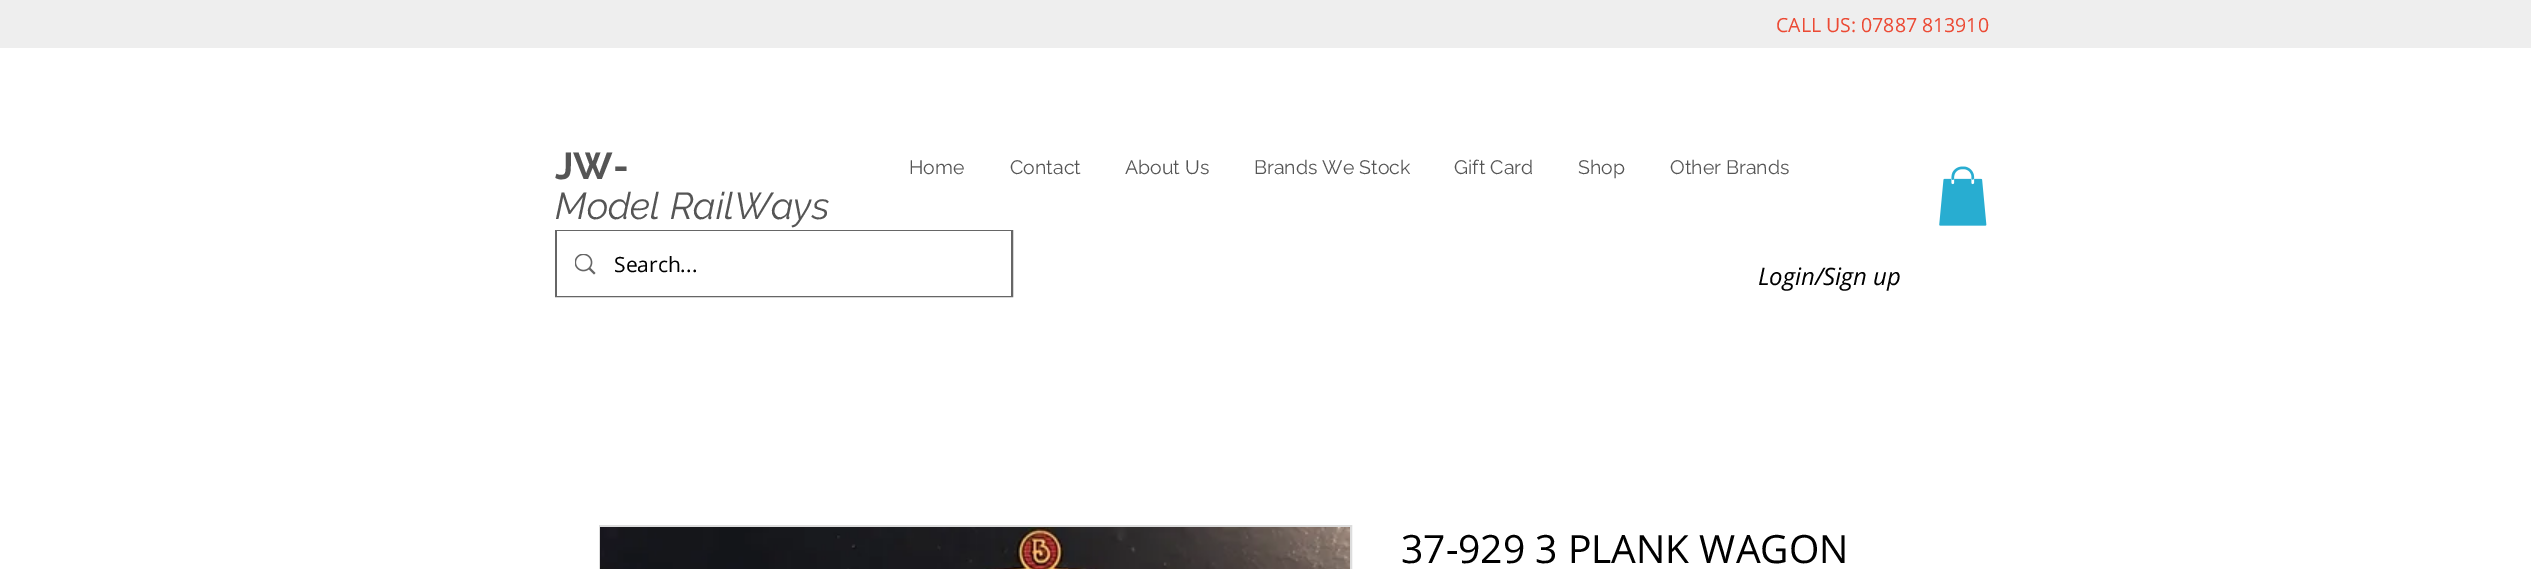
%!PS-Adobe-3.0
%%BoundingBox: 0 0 2531 569
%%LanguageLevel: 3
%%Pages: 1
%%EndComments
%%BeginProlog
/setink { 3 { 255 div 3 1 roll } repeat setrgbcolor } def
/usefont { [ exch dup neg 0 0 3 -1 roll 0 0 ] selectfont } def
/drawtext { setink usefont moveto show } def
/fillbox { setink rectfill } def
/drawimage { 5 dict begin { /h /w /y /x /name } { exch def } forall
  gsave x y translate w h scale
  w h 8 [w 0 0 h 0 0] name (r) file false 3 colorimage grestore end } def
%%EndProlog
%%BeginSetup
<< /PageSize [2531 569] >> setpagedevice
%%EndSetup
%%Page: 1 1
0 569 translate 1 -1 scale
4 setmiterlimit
0 0 2531 569 255 255 255 fillbox
0 0 2531 48 238 238 238 fillbox
(CALL US: 07887 813910) 1776 32 /OpenSans-Regular 19.5 236 74 52 drawtext
(JW-) 555 179 /Raleway-Bold 37.5 85 85 85 drawtext
(Model RailWays) 555 219 /Raleway-Italic 37.5 85 85 85 drawtext
(Home) 909 174 /Raleway-Regular 19.5 85 85 85 drawtext
(Contact) 1010 174 /Raleway-Regular 19.5 85 85 85 drawtext
(About Us) 1125 174 /Raleway-Regular 19.5 85 85 85 drawtext
(Brands We Stock) 1254 174 /Raleway-Regular 19.5 85 85 85 drawtext
(Gift Card) 1454 174 /Raleway-Regular 19.5 85 85 85 drawtext
(Shop) 1578 174 /Raleway-Regular 19.5 85 85 85 drawtext
(Other Brands) 1670 174 /Raleway-Regular 19.5 85 85 85 drawtext
(assets/img1.rgb) 1939 166 48 60 drawimage
102 102 102 setink
2 setlinewidth
556 231 456 65 rectstroke
557 231 454 65 255 255 255 fillbox
(assets/img2.rgb) 575 254 21 21 drawimage
(Search...) 614 272 /OpenSans-Regular 21 0 0 0 drawtext
(Login/Sign up) 1758 285 /OpenSans-Italic 24 0 0 0 drawtext
221 221 221 setink
600 526 751 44 rectstroke
(assets/img3.rgb) 600 527 750 42 drawimage
(37-929 3 PLANK WAGON) 1401 563 /OpenSans-Regular 39 0 0 0 drawtext
showpage
%%EOF
